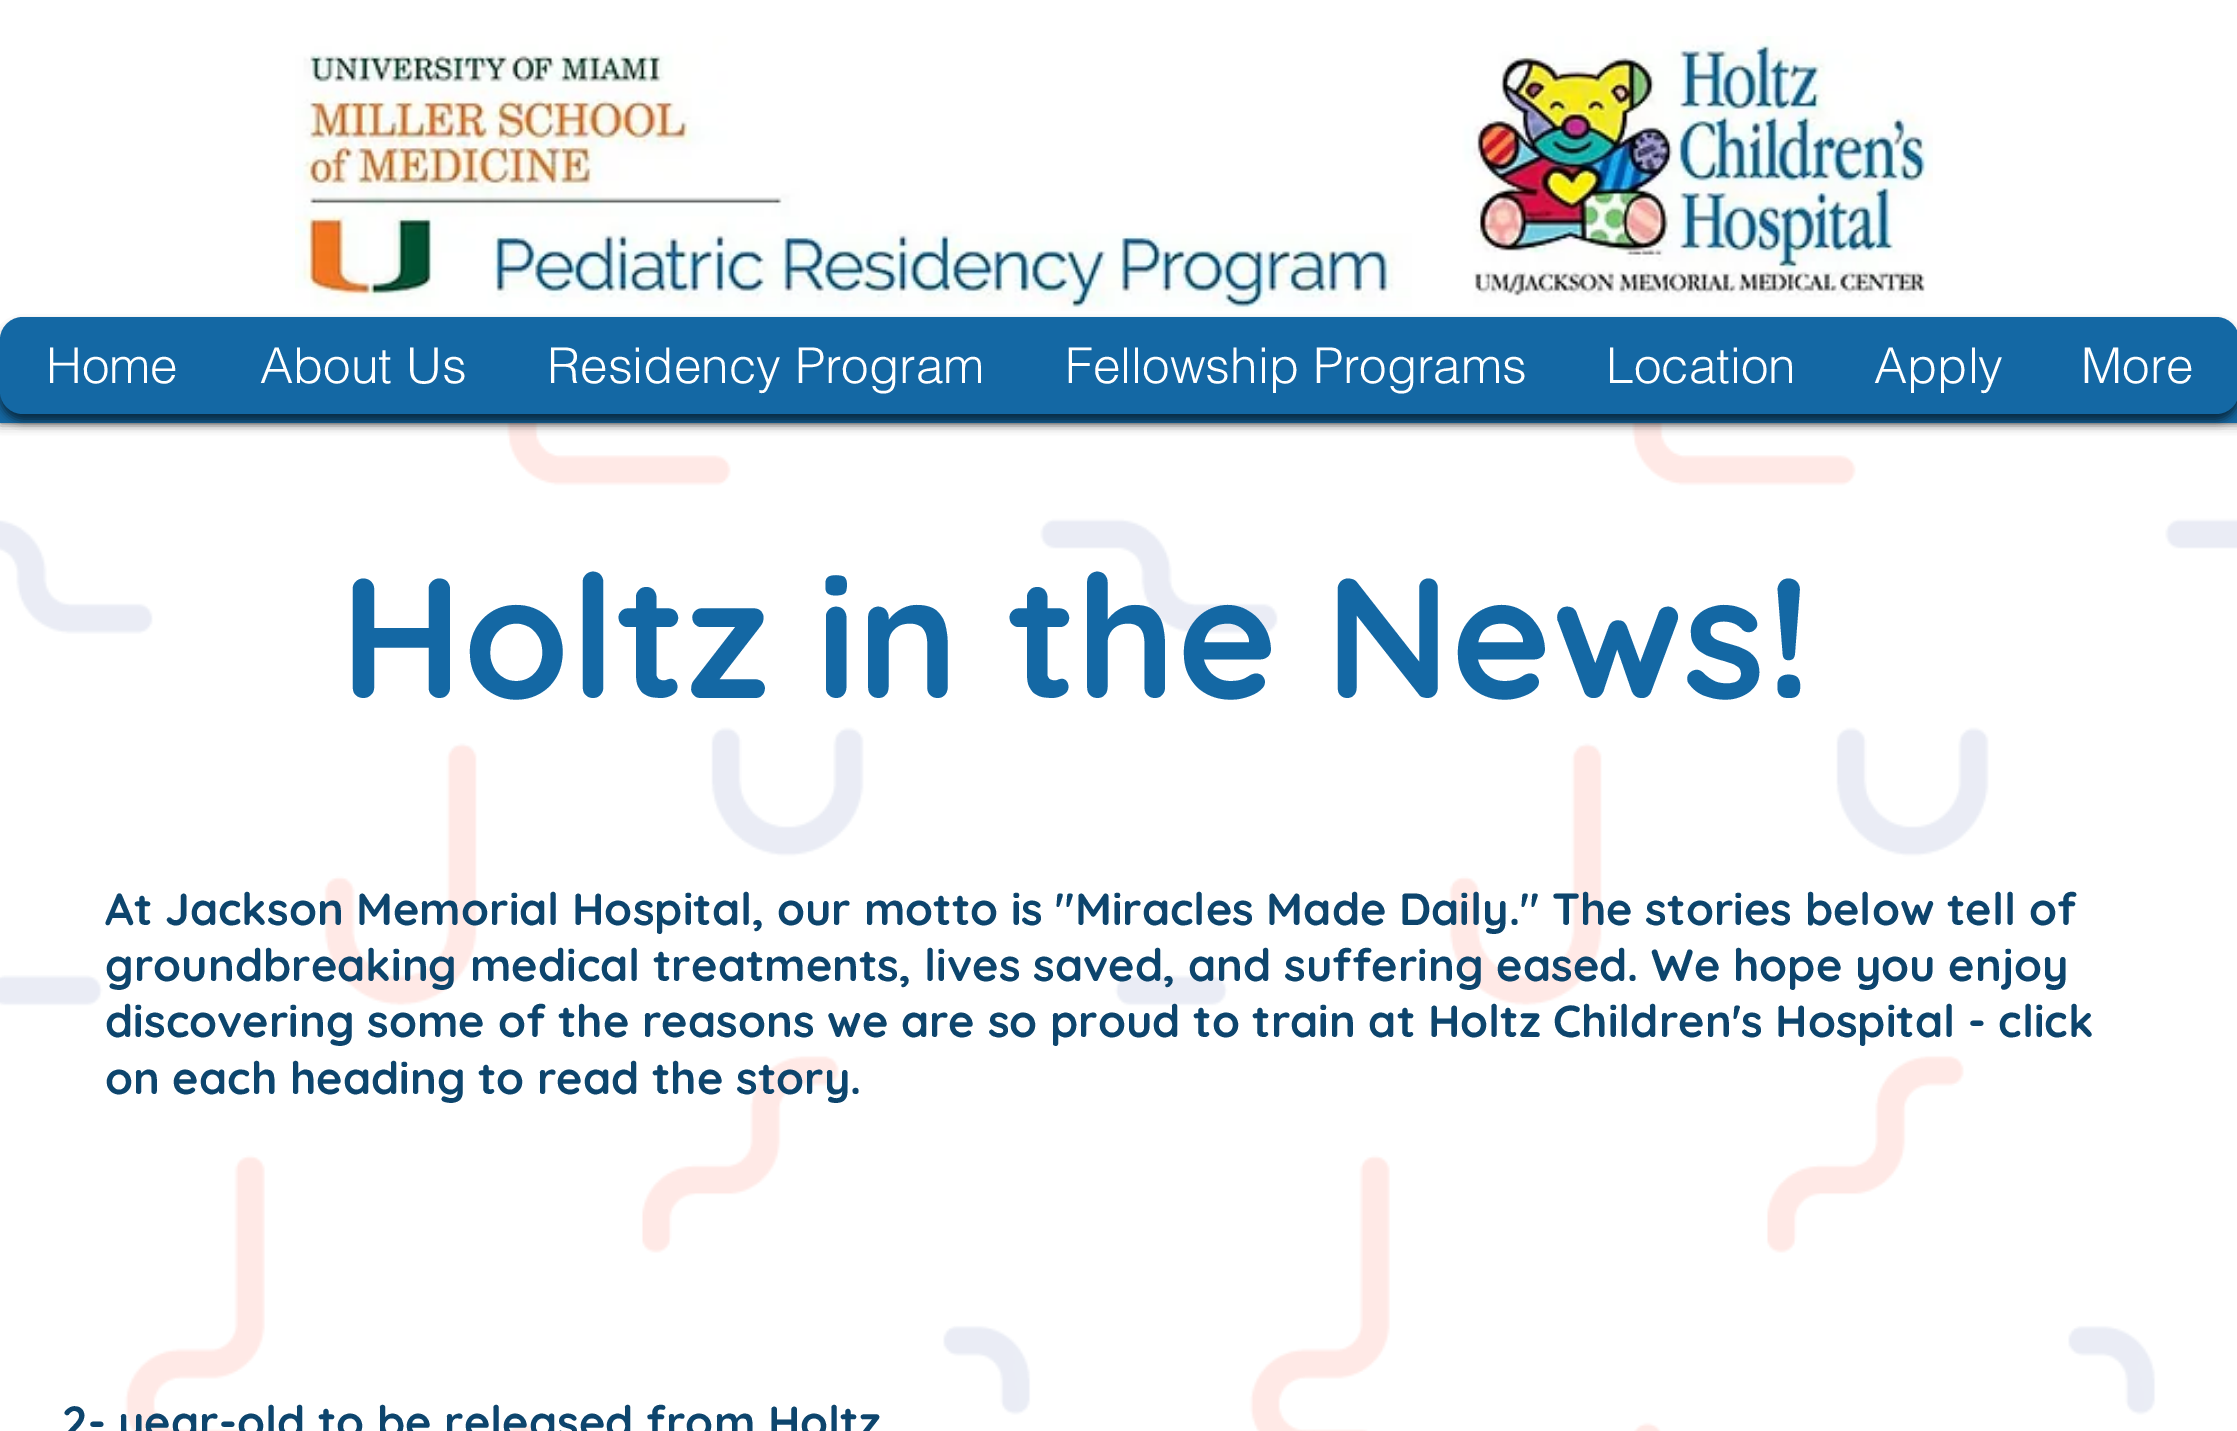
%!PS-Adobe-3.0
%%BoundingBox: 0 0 2237 1431
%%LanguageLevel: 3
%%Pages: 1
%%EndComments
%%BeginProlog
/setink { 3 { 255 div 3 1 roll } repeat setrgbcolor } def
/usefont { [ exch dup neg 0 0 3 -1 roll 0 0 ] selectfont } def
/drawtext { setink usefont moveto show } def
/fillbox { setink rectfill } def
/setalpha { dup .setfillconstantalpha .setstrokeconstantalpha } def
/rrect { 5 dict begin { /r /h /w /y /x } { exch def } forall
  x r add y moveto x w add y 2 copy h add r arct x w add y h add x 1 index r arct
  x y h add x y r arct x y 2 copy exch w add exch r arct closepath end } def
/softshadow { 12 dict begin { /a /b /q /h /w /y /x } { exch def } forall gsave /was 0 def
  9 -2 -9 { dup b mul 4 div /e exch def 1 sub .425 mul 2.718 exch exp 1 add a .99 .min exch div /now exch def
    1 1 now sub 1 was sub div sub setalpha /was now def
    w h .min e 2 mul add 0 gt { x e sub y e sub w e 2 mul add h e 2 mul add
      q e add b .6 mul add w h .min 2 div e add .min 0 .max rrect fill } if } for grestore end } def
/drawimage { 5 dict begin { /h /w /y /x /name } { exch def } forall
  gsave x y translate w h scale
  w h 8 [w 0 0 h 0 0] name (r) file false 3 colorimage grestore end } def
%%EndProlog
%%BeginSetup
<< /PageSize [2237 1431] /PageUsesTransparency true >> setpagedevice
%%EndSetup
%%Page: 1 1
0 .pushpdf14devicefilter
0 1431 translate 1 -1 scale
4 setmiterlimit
0 0 2237 1431 255 255 255 fillbox
(assets/img2.rgb) 0 423 2237 1008 drawimage
0 0 0 setink
0 0 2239 423 0 5.5 0.7 softshadow
0 0 2237 340 255 255 255 fillbox
0 391 2237 32 20 104 164 fillbox
(assets/img1.rgb) 295 36 1638 275 drawimage
0 0 0 setink
0 324 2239 97 23 4.5 0.6 softshadow
20 104 164 setink
0 317 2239 97 23 rrect fill
(Home) 46 383 /helvetica-Light 49.5 255 255 255 drawtext
(About Us) 260 383 /helvetica-Light 49.5 255 255 255 drawtext
(Residency Program) 547 383 /helvetica-Light 49.5 255 255 255 drawtext
(Fellowship Programs) 1065 383 /helvetica-Light 49.5 255 255 255 drawtext
(Location) 1606 383 /helvetica-Light 49.5 255 255 255 drawtext
(Apply) 1874 383 /helvetica-Light 49.5 255 255 255 drawtext
(More) 2081 383 /helvetica-Light 49.5 255 255 255 drawtext
(Holtz in the News!) 340 698 /Quicksand-Bold 171 20 104 164 drawtext
(At Jackson Memorial Hospital, our motto is "Miracles Made Daily." The stories below tell of) 105 925 /Quicksand-Bold 45 13 69 109 drawtext
(groundbreaking medical treatments, lives saved, and suffering eased. We hope you enjoy) 105 981 /Quicksand-Bold 45 13 69 109 drawtext
(discovering some of the reasons we are so proud to train at Holtz Children's Hospital - click) 105 1037 /Quicksand-Bold 45 13 69 109 drawtext
(on each heading to read the story.) 105 1094 /Quicksand-Bold 45 13 69 109 drawtext
(2- year-old to be released from Holtz) 62 1438 /Quicksand-Bold 45 13 69 109 drawtext
.poppdf14devicefilter showpage
%%EOF
